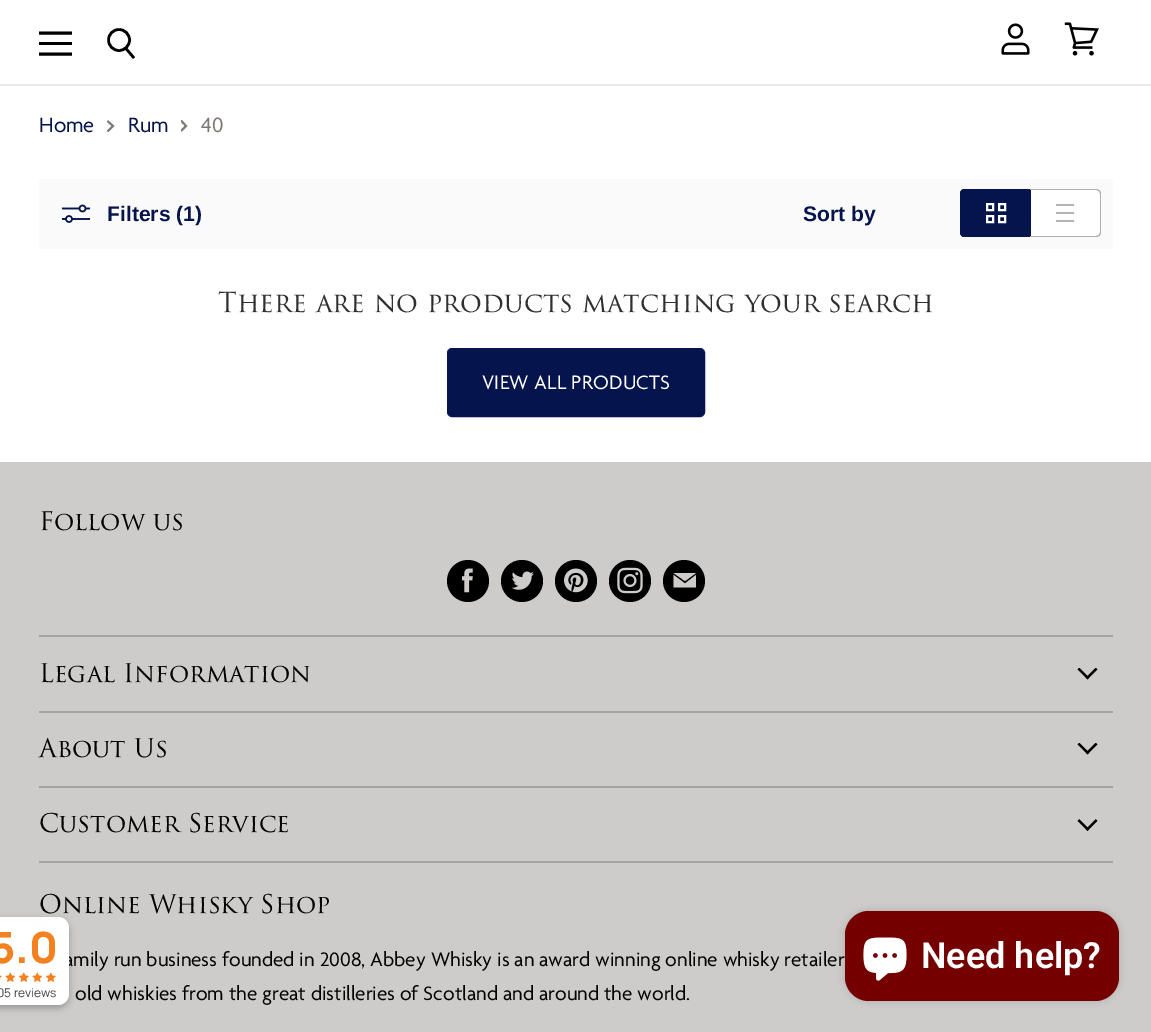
%!PS-Adobe-3.0
%%BoundingBox: 0 0 1151 1032
%%LanguageLevel: 3
%%Pages: 1
%%EndComments
%%BeginProlog
/setink { 3 { 255 div 3 1 roll } repeat setrgbcolor } def
/usefont { [ exch dup neg 0 0 3 -1 roll 0 0 ] selectfont } def
/drawtext { setink usefont moveto show } def
/fillbox { setink rectfill } def
/setalpha { dup .setfillconstantalpha .setstrokeconstantalpha } def
/disc { newpath 0 360 arc closepath } def
/rrect { 5 dict begin { /r /h /w /y /x } { exch def } forall
  x r add y moveto x w add y 2 copy h add r arct x w add y h add x 1 index r arct
  x y h add x y r arct x y 2 copy exch w add exch r arct closepath end } def
/softshadow { 12 dict begin { /a /b /q /h /w /y /x } { exch def } forall gsave /was 0 def
  9 -2 -9 { dup b mul 4 div /e exch def 1 sub .425 mul 2.718 exch exp 1 add a .99 .min exch div /now exch def
    1 1 now sub 1 was sub div sub setalpha /was now def
    w h .min e 2 mul add 0 gt { x e sub y e sub w e 2 mul add h e 2 mul add
      q e add b .6 mul add w h .min 2 div e add .min 0 .max rrect fill } if } for grestore end } def
/drawimage { 5 dict begin { /h /w /y /x /name } { exch def } forall
  gsave x y translate w h scale
  w h 8 [w 0 0 h 0 0] name (r) file false 3 colorimage grestore end } def
%%EndProlog
%%BeginSetup
<< /PageSize [1151 1032] /PageUsesTransparency true >> setpagedevice
%%EndSetup
%%Page: 1 1
0 .pushpdf14devicefilter
0 1032 translate 1 -1 scale
4 setmiterlimit
0 0 1151 1032 255 255 255 fillbox
0 84 1151 2 234 234 234 fillbox
0 0 0 setink
3 setlinewidth
2 setlinecap
1 setlinejoin
70.5 33 moveto 40.5 33 lineto stroke
39 42 33 3 0 0 0 fillbox
70.5 54 moveto 40.5 54 lineto stroke
2.6 setlinewidth
0 setlinecap
0 setlinejoin
134 58 moveto 125.5 48 lineto stroke
119 40 10.5 disc stroke
(assets/img1.rgb) 1001 23 29 32 drawimage
(assets/img2.rgb) 1064 22 35 34 drawimage
(Home) 39 132 /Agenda-Regular 22.5 6 20 77 drawtext
gsave
107.5 132 moveto 107.5 120 lineto 115 120 lineto 115 132 lineto closepath clip newpath
124 120 115 setink
1.9 setlinewidth
107.5 131.5 moveto 113 126 lineto 107.5 121 lineto stroke
grestore
(Rum) 128 132 /Agenda-Regular 22.5 6 20 77 drawtext
gsave
181 132 moveto 181 120 lineto 188 120 lineto 188 132 lineto closepath clip newpath
124 120 115 setink
1.9 setlinewidth
181 131 moveto 186 126 lineto 181 120.5 lineto stroke
grestore
(40) 201 132 /Agenda-Regular 22.5 124 120 115 drawtext
250 250 250 setink
39 179 1074 70 2 rrect fill
(assets/img3.rgb) 62 204 28 19 drawimage
(Filters \(1\)) 107 221 /LiberationSans-Bold 21.1 6 20 77 drawtext
(Sort by) 803 221 /LiberationSans-Bold 21.1 6 20 77 drawtext
965 189 moveto 1031 189 lineto 1031 237 lineto 965 237 lineto 962 237 960 235 960 232 curveto 960 194 lineto 960 191 962 189 965 189 curveto closepath fill
964 189 moveto 1030 189 lineto 1030 237 lineto 964 237 lineto 962 237 960 235 960 232 curveto 960 194 lineto 960 191 962 189 964 189 curveto closepath 964 190 moveto 1030 190 lineto 1030 236 lineto 964 236 lineto 963 236 962 234 962 232 curveto 962 194 lineto 962 192 963 190 964 190 curveto closepath eofill
255 255 255 setink
2 setlinewidth
987 204 6 6 rectstroke
999 204 6 6 rectstroke
987 216 6 6 rectstroke
999 216 6 6 rectstroke
1031 189 moveto 1096 189 lineto 1099 189 1101 191 1101 194 curveto 1101 232 lineto 1101 235 1099 237 1096 237 curveto 1031 237 lineto closepath fill
175 175 175 setink
1030 189 moveto 1096 189 lineto 1099 189 1101 191 1101 194 curveto 1101 232 lineto 1101 235 1099 237 1096 237 curveto 1030 237 lineto closepath 1030 190 moveto 1096 190 lineto 1098 190 1100 192 1100 194 curveto 1100 232 lineto 1100 234 1098 236 1096 236 curveto 1030 236 lineto closepath eofill
1056 204 18 2 179 179 179 fillbox
1056 212 18 2 179 179 179 fillbox
1056 220 18 2 179 179 179 fillbox
(There are no products matching your search) 218 312 /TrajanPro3-Regular 27 48 47 47 drawtext
6 20 77 setink
448 349 256 67 4 rrect gsave fill grestore
stroke
/Agenda-Regular 21 usefont
255 255 255 setink
482 389 moveto 0.25 0 (VIEW ALL PRODUCTS) ashow
0 462 1151 570 205 204 203 fillbox
0 0 0 setink
-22 920 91 88 11 3.5 0.26 softshadow
(amily run business founded in 2008, Abbey Whisky is an award winning online whisky retailer) 64 966 /Agenda-Regular 21.1 0 0 0 drawtext
255 255 255 setink
-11 917 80 88 11 rrect fill
(5.0) -10 963 /Manrope-ExtraBold 43 244 129 32 drawtext
(assets/img4.rgb) 0 975 2 3 drawimage
(assets/img5.rgb) 5 972 10 10 drawimage
(assets/img6.rgb) 18 972 11 10 drawimage
(assets/img5.rgb) 32 972 10 10 drawimage
(assets/img6.rgb) 45 972 11 10 drawimage
(05 reviews) -3 997 /Manrope-Regular 12 64 64 64 drawtext
39 635 1074 2 164 163 162 fillbox
(Follow us) 39 530 /TrajanPro3-Regular 25.1 0 0 0 drawtext
468 581 21 disc fill
(assets/img7.rgb) 462 568 11 25 drawimage
522 581 21 disc fill
(assets/img8.rgb) 511 571 23 19 drawimage
576 581 21 disc fill
(assets/img9.rgb) 564 568 24 25 drawimage
630 581 21 disc fill
(assets/img10.rgb) 617 567 26 27 drawimage
684 581 21 disc fill
205 204 203 setink
696 573 moveto 673.5 573 lineto 685 581 lineto closepath 685 583.5 moveto 673.5 575 lineto 673.5 587.5 lineto 696 587.5 lineto 696 575 lineto closepath eofill
39 711 1074 2 164 163 162 fillbox
(Legal Information) 39 682 /TrajanPro3-Regular 25.1 0 0 0 drawtext
(assets/img11.rgb) 1077 668 21 12 drawimage
39 786 1074 2 164 163 162 fillbox
(About Us) 39 757 /TrajanPro3-Regular 25.1 0 0 0 drawtext
(assets/img11.rgb) 1077 743 21 12 drawimage
39 861 1074 2 164 163 162 fillbox
(Customer Service) 39 832 /TrajanPro3-Regular 25.1 0 0 0 drawtext
(assets/img12.rgb) 1077 819 21 12 drawimage
(Online Whisky Shop) 39 913 /TrajanPro3-Regular 25.1 0 0 0 drawtext
(old whiskies from the great distilleries of Scotland and around the world.) 75 1000 /Agenda-Regular 21.1 0 0 0 drawtext
845 911 274 90 24 4 0.15 softshadow
116 0 0 setink
845 911 274 90 24 rrect fill
(assets/img13.rgb) 863 937 44 44 drawimage
(Need help?) 921 968 /Roboto-SemiBold 36 255 255 255 drawtext
.poppdf14devicefilter showpage
%%EOF
